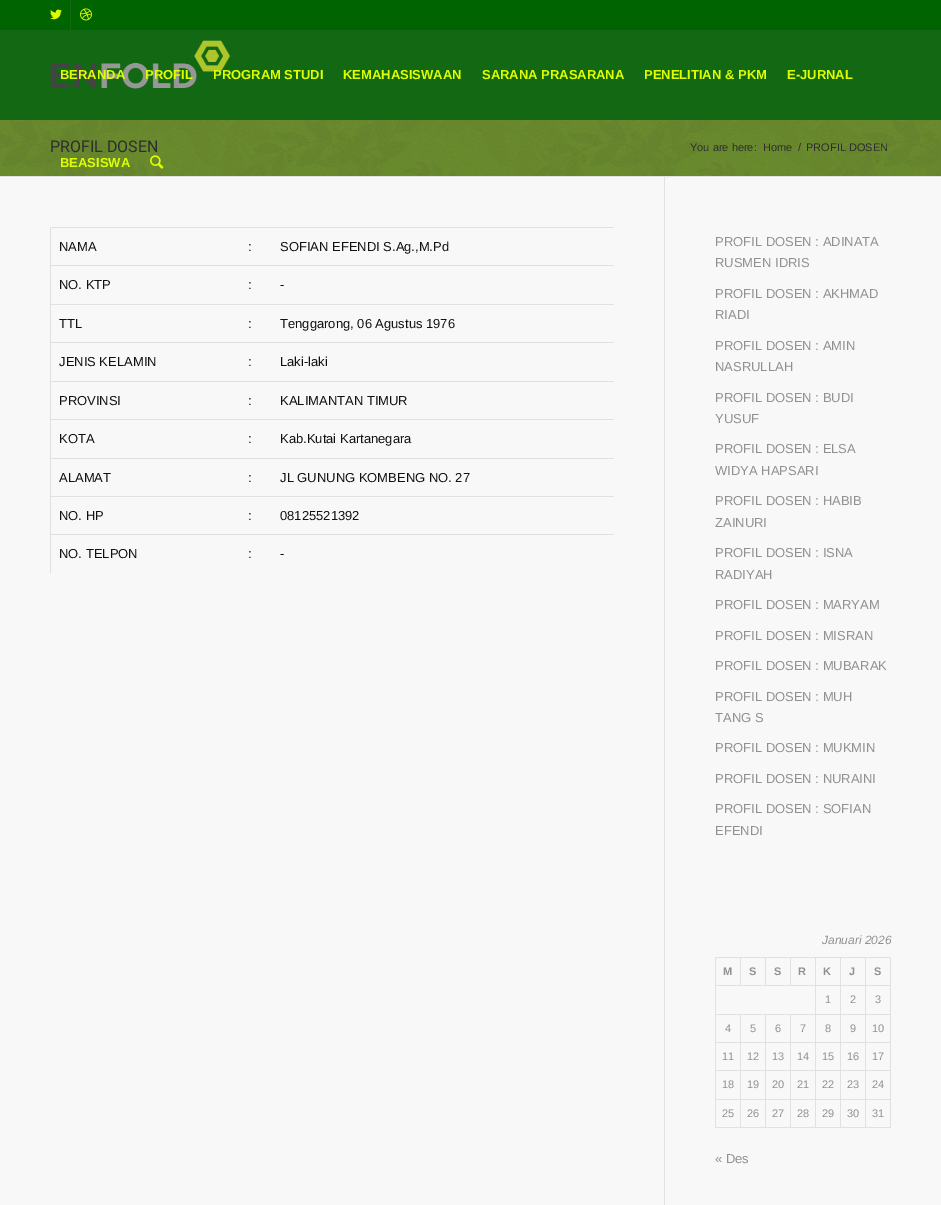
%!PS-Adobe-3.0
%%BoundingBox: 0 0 941 1205
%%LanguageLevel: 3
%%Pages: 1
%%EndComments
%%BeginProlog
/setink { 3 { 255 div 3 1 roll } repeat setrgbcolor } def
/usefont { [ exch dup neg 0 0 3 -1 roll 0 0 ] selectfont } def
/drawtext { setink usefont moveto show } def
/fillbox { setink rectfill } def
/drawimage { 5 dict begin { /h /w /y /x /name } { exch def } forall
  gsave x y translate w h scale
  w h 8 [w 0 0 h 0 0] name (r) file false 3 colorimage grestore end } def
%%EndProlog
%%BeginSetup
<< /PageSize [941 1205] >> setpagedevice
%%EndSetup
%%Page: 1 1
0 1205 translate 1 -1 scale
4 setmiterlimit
0 0 941 1205 113 148 48 fillbox
0 0 941 30 0 100 0 fillbox
70 0 1 30 19 105 19 fillbox
(assets/img1.rgb) 50 9 12 11 drawimage
(assets/img2.rgb) 80 8 12 13 drawimage
0 30 941 90 19 105 19 fillbox
(assets/img3.rgb) 50 40 181 49 drawimage
(BERANDA) 60 79 /LiberationSans-Bold 13 221 255 0 drawtext
(PROFIL) 145 79 /LiberationSans-Bold 13 221 255 0 drawtext
(PROGRAM STUDI) 213 79 /LiberationSans-Bold 13 221 255 0 drawtext
(KEMAHASISWAAN) 343 79 /LiberationSans-Bold 13 221 255 0 drawtext
(SARANA PRASARANA) 482 79 /LiberationSans-Bold 13 221 255 0 drawtext
(PENELITIAN & PKM) 644 79 /LiberationSans-Bold 13 221 255 0 drawtext
(E-JURNAL) 787 79 /LiberationSans-Bold 13 221 255 0 drawtext
(assets/img5.rgb) 0 120 941 56 drawimage
(BEASISWA) 60 167 /LiberationSans-Bold 13 221 255 0 drawtext
(assets/img4.rgb) 150 155 14 14 drawimage
(PROFIL DOSEN) 50 152 /Roboto-Regular 16 46 46 46 drawtext
(You are here:) 690 151 /LiberationSans-Regular 11 46 46 46 drawtext
(Home) 763 151 /LiberationSans-Regular 11 46 46 46 drawtext
(/) 798 151 /LiberationSans-Regular 11 46 46 46 drawtext
(PROFIL DOSEN) 806 151 /LiberationSans-Regular 11 46 46 46 drawtext
0 177 941 1028 248 248 248 fillbox
0 176 941 1 225 225 225 fillbox
50 227 564 1 225 225 225 fillbox
50 265 564 1 225 225 225 fillbox
50 304 564 1 225 225 225 fillbox
50 342 564 1 225 225 225 fillbox
50 381 564 1 225 225 225 fillbox
50 419 564 1 225 225 225 fillbox
50 458 564 1 225 225 225 fillbox
50 496 564 1 225 225 225 fillbox
50 534 564 1 225 225 225 fillbox
50 534 1 39 225 225 225 fillbox
50 496 1 39 225 225 225 fillbox
50 458 1 39 225 225 225 fillbox
50 419 1 40 225 225 225 fillbox
50 381 1 39 225 225 225 fillbox
50 342 1 40 225 225 225 fillbox
50 304 1 39 225 225 225 fillbox
50 265 1 40 225 225 225 fillbox
50 227 1 39 225 225 225 fillbox
(NAMA) 59 251 /LiberationSans-Regular 13 17 17 17 drawtext
(:) 248 251 /LiberationSans-Regular 13 17 17 17 drawtext
(SOFIAN EFENDI S.Ag.,M.Pd) 280 251 /LiberationSans-Regular 13 17 17 17 drawtext
(NO. KTP) 59 289 /LiberationSans-Regular 13 17 17 17 drawtext
(:) 248 289 /LiberationSans-Regular 13 17 17 17 drawtext
(-) 280 289 /LiberationSans-Regular 13 17 17 17 drawtext
(TTL) 59 328 /LiberationSans-Regular 13 17 17 17 drawtext
(:) 248 328 /LiberationSans-Regular 13 17 17 17 drawtext
(Tenggarong, 06 Agustus 1976) 280 328 /LiberationSans-Regular 13 17 17 17 drawtext
(JENIS KELAMIN) 59 366 /LiberationSans-Regular 13 17 17 17 drawtext
(:) 248 366 /LiberationSans-Regular 13 17 17 17 drawtext
(Laki-laki) 280 366 /LiberationSans-Regular 13 17 17 17 drawtext
(PROVINSI) 59 405 /LiberationSans-Regular 13 17 17 17 drawtext
(:) 248 405 /LiberationSans-Regular 13 17 17 17 drawtext
(KALIMANTAN TIMUR) 280 405 /LiberationSans-Regular 13 17 17 17 drawtext
(KOTA) 59 443 /LiberationSans-Regular 13 17 17 17 drawtext
(:) 248 443 /LiberationSans-Regular 13 17 17 17 drawtext
(Kab.Kutai Kartanegara) 280 443 /LiberationSans-Regular 13 17 17 17 drawtext
(ALAMAT) 59 482 /LiberationSans-Regular 13 17 17 17 drawtext
(:) 248 482 /LiberationSans-Regular 13 17 17 17 drawtext
(JL GUNUNG KOMBENG NO. 27) 280 482 /LiberationSans-Regular 13 17 17 17 drawtext
(NO. HP) 59 520 /LiberationSans-Regular 13 17 17 17 drawtext
(:) 248 520 /LiberationSans-Regular 13 17 17 17 drawtext
(08125521392) 280 520 /LiberationSans-Regular 13 17 17 17 drawtext
(NO. TELPON) 59 558 /LiberationSans-Regular 13 17 17 17 drawtext
(:) 248 558 /LiberationSans-Regular 13 17 17 17 drawtext
(-) 280 558 /LiberationSans-Regular 13 17 17 17 drawtext
664 177 1 1028 225 225 225 fillbox
(PROFIL DOSEN : ADINATA) 715 246 /LiberationSans-Regular 13 145 145 145 drawtext
(RUSMEN IDRIS) 715 267 /LiberationSans-Regular 13 145 145 145 drawtext
(PROFIL DOSEN : AKHMAD) 715 298 /LiberationSans-Regular 13 145 145 145 drawtext
(RIADI) 715 319 /LiberationSans-Regular 13 145 145 145 drawtext
(PROFIL DOSEN : AMIN) 715 350 /LiberationSans-Regular 13 145 145 145 drawtext
(NASRULLAH) 715 371 /LiberationSans-Regular 13 145 145 145 drawtext
(PROFIL DOSEN : BUDI) 715 402 /LiberationSans-Regular 13 145 145 145 drawtext
(YUSUF) 715 423 /LiberationSans-Regular 13 145 145 145 drawtext
(PROFIL DOSEN : ELSA) 715 453 /LiberationSans-Regular 13 145 145 145 drawtext
(WIDYA HAPSARI) 715 475 /LiberationSans-Regular 13 145 145 145 drawtext
(PROFIL DOSEN : HABIB) 715 505 /LiberationSans-Regular 13 145 145 145 drawtext
(ZAINURI) 715 527 /LiberationSans-Regular 13 145 145 145 drawtext
(PROFIL DOSEN : ISNA) 715 557 /LiberationSans-Regular 13 145 145 145 drawtext
(RADIYAH) 715 579 /LiberationSans-Regular 13 145 145 145 drawtext
(PROFIL DOSEN : MARYAM) 715 609 /LiberationSans-Regular 13 145 145 145 drawtext
(PROFIL DOSEN : MISRAN) 715 640 /LiberationSans-Regular 13 145 145 145 drawtext
(PROFIL DOSEN : MUBARAK) 715 670 /LiberationSans-Regular 13 145 145 145 drawtext
(PROFIL DOSEN : MUH) 715 701 /LiberationSans-Regular 13 145 145 145 drawtext
(TANG S) 715 722 /LiberationSans-Regular 13 145 145 145 drawtext
(PROFIL DOSEN : MUKMIN) 715 752 /LiberationSans-Regular 13 145 145 145 drawtext
(PROFIL DOSEN : NURAINI) 715 783 /LiberationSans-Regular 13 145 145 145 drawtext
(PROFIL DOSEN : SOFIAN) 715 813 /LiberationSans-Regular 13 145 145 145 drawtext
(EFENDI) 715 835 /LiberationSans-Regular 13 145 145 145 drawtext
(Januari 2026) 822 944 /LiberationSans-Italic 12 145 145 145 drawtext
715 957 176 1 225 225 225 fillbox
715 985 176 1 225 225 225 fillbox
740 957 1 29 225 225 225 fillbox
890 1014 1 114 225 225 225 fillbox
890 985 1 30 225 225 225 fillbox
865 1127 26 1 225 225 225 fillbox
865 1099 1 29 225 225 225 fillbox
865 1099 26 1 225 225 225 fillbox
865 1070 1 30 225 225 225 fillbox
865 1070 26 1 225 225 225 fillbox
865 1042 1 29 225 225 225 fillbox
865 1042 26 1 225 225 225 fillbox
865 1014 1 29 225 225 225 fillbox
865 1014 26 1 225 225 225 fillbox
865 985 1 30 225 225 225 fillbox
840 1127 26 1 225 225 225 fillbox
840 1099 1 29 225 225 225 fillbox
840 1099 26 1 225 225 225 fillbox
840 1070 1 30 225 225 225 fillbox
840 1070 26 1 225 225 225 fillbox
840 1042 1 29 225 225 225 fillbox
840 1042 26 1 225 225 225 fillbox
840 1014 1 29 225 225 225 fillbox
840 1014 26 1 225 225 225 fillbox
840 985 1 30 225 225 225 fillbox
815 1127 26 1 225 225 225 fillbox
815 1099 1 29 225 225 225 fillbox
815 1099 26 1 225 225 225 fillbox
815 1070 1 30 225 225 225 fillbox
815 1070 26 1 225 225 225 fillbox
815 1042 1 29 225 225 225 fillbox
815 1042 26 1 225 225 225 fillbox
815 1014 1 29 225 225 225 fillbox
815 1014 26 1 225 225 225 fillbox
815 985 1 30 225 225 225 fillbox
790 1127 26 1 225 225 225 fillbox
790 1099 1 29 225 225 225 fillbox
790 1099 26 1 225 225 225 fillbox
790 1070 1 30 225 225 225 fillbox
790 1070 26 1 225 225 225 fillbox
790 1042 1 29 225 225 225 fillbox
790 1042 26 1 225 225 225 fillbox
790 1014 1 29 225 225 225 fillbox
765 1127 26 1 225 225 225 fillbox
765 1099 1 29 225 225 225 fillbox
765 1099 26 1 225 225 225 fillbox
765 1070 1 30 225 225 225 fillbox
765 1070 26 1 225 225 225 fillbox
765 1042 1 29 225 225 225 fillbox
765 1042 26 1 225 225 225 fillbox
765 1014 1 29 225 225 225 fillbox
740 1127 26 1 225 225 225 fillbox
740 1099 1 29 225 225 225 fillbox
740 1099 26 1 225 225 225 fillbox
740 1070 1 30 225 225 225 fillbox
740 1070 26 1 225 225 225 fillbox
740 1042 1 29 225 225 225 fillbox
740 1042 26 1 225 225 225 fillbox
740 1014 1 29 225 225 225 fillbox
715 1127 26 1 225 225 225 fillbox
715 1099 1 29 225 225 225 fillbox
715 1099 26 1 225 225 225 fillbox
715 1070 1 30 225 225 225 fillbox
715 1070 26 1 225 225 225 fillbox
715 1042 1 29 225 225 225 fillbox
715 1042 26 1 225 225 225 fillbox
715 1014 1 29 225 225 225 fillbox
715 1014 101 1 225 225 225 fillbox
715 985 1 30 225 225 225 fillbox
715 957 1 29 225 225 225 fillbox
/LiberationSans-Bold 11 usefont
145 145 145 setink
723 975 moveto 2 0 (M) ashow
765 957 1 29 225 225 225 fillbox
145 145 145 setink
749 975 moveto 2 0 (S) ashow
790 957 1 29 225 225 225 fillbox
145 145 145 setink
774 975 moveto 2 0 (S) ashow
815 957 1 29 225 225 225 fillbox
145 145 145 setink
798 975 moveto 2 0 (R) ashow
840 957 1 29 225 225 225 fillbox
145 145 145 setink
823 975 moveto 2 0 (K) ashow
865 957 1 29 225 225 225 fillbox
145 145 145 setink
849 975 moveto 2 0 (J) ashow
890 957 1 29 225 225 225 fillbox
145 145 145 setink
874 975 moveto 2 0 (S) ashow
(1) 825 1003 /LiberationSans-Regular 11 145 145 145 drawtext
(2) 850 1003 /LiberationSans-Regular 11 145 145 145 drawtext
(3) 875 1003 /LiberationSans-Regular 11 145 145 145 drawtext
(4) 725 1032 /LiberationSans-Regular 11 145 145 145 drawtext
(5) 750 1032 /LiberationSans-Regular 11 145 145 145 drawtext
(6) 775 1032 /LiberationSans-Regular 11 145 145 145 drawtext
(7) 800 1032 /LiberationSans-Regular 11 145 145 145 drawtext
(8) 825 1032 /LiberationSans-Regular 11 145 145 145 drawtext
(9) 850 1032 /LiberationSans-Regular 11 145 145 145 drawtext
(10) 872 1032 /LiberationSans-Regular 11 145 145 145 drawtext
(11) 722 1060 /LiberationSans-Regular 11 145 145 145 drawtext
(12) 747 1060 /LiberationSans-Regular 11 145 145 145 drawtext
(13) 772 1060 /LiberationSans-Regular 11 145 145 145 drawtext
(14) 797 1060 /LiberationSans-Regular 11 145 145 145 drawtext
(15) 822 1060 /LiberationSans-Regular 11 145 145 145 drawtext
(16) 847 1060 /LiberationSans-Regular 11 145 145 145 drawtext
(17) 872 1060 /LiberationSans-Regular 11 145 145 145 drawtext
(18) 722 1088 /LiberationSans-Regular 11 145 145 145 drawtext
(19) 747 1088 /LiberationSans-Regular 11 145 145 145 drawtext
(20) 772 1088 /LiberationSans-Regular 11 145 145 145 drawtext
(21) 797 1088 /LiberationSans-Regular 11 145 145 145 drawtext
(22) 822 1088 /LiberationSans-Regular 11 145 145 145 drawtext
(23) 847 1088 /LiberationSans-Regular 11 145 145 145 drawtext
(24) 872 1088 /LiberationSans-Regular 11 145 145 145 drawtext
(25) 722 1117 /LiberationSans-Regular 11 145 145 145 drawtext
(26) 747 1117 /LiberationSans-Regular 11 145 145 145 drawtext
(27) 772 1117 /LiberationSans-Regular 11 145 145 145 drawtext
(28) 797 1117 /LiberationSans-Regular 11 145 145 145 drawtext
(29) 822 1117 /LiberationSans-Regular 11 145 145 145 drawtext
(30) 847 1117 /LiberationSans-Regular 11 145 145 145 drawtext
(31) 872 1117 /LiberationSans-Regular 11 145 145 145 drawtext
(« Des) 715 1163 /LiberationSans-Regular 13 145 145 145 drawtext
showpage
%%EOF
